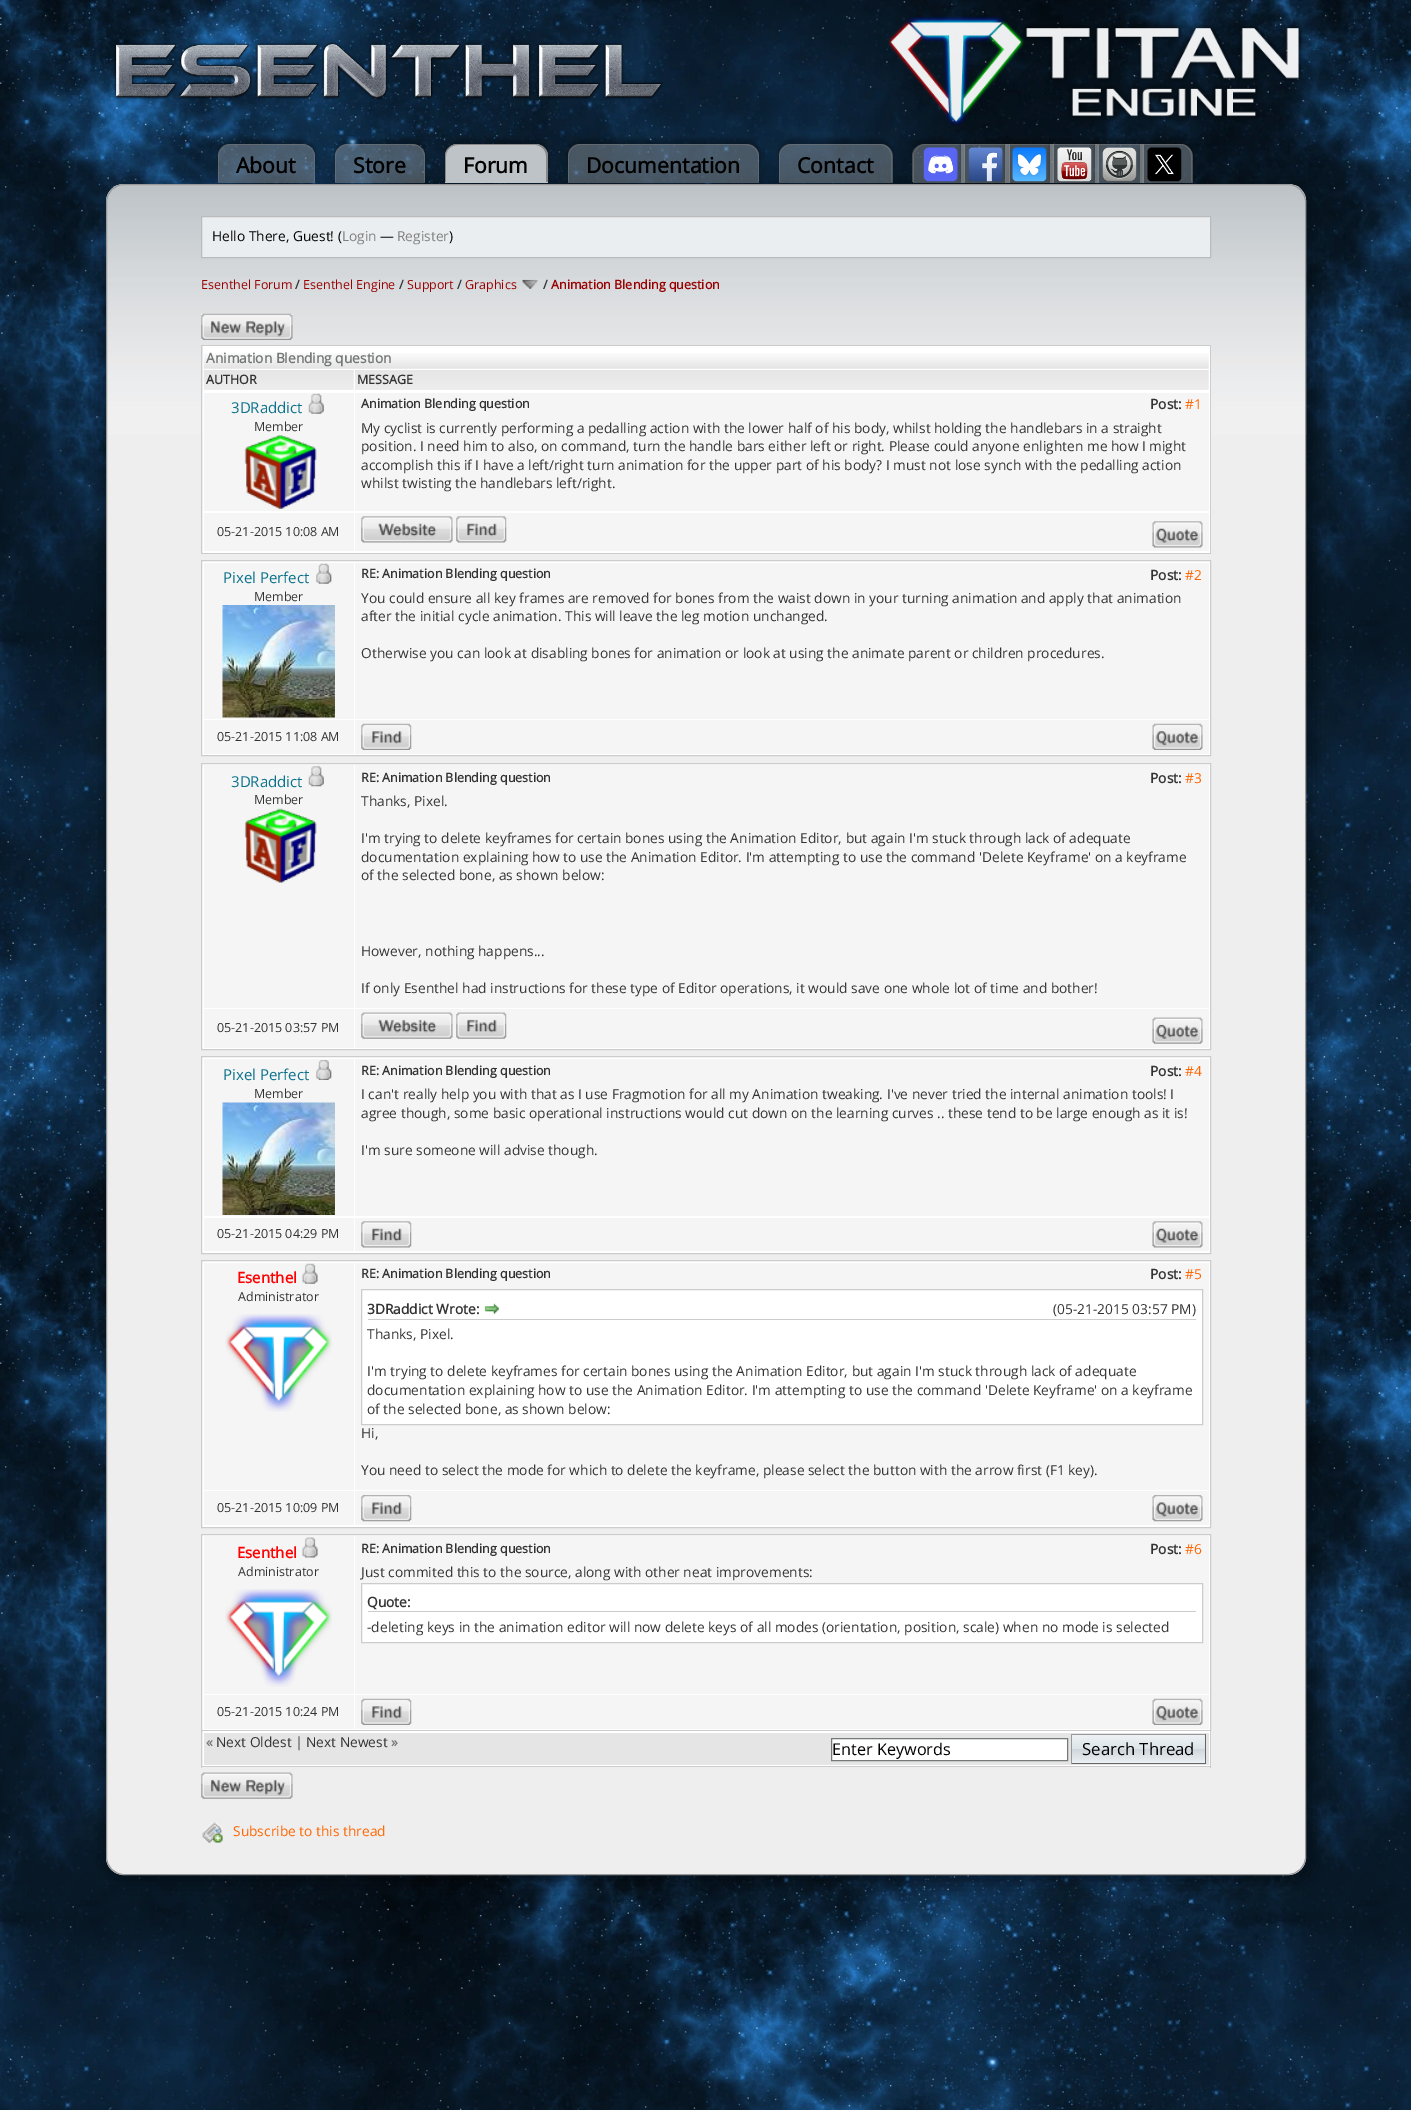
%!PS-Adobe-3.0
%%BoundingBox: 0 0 1411 2110
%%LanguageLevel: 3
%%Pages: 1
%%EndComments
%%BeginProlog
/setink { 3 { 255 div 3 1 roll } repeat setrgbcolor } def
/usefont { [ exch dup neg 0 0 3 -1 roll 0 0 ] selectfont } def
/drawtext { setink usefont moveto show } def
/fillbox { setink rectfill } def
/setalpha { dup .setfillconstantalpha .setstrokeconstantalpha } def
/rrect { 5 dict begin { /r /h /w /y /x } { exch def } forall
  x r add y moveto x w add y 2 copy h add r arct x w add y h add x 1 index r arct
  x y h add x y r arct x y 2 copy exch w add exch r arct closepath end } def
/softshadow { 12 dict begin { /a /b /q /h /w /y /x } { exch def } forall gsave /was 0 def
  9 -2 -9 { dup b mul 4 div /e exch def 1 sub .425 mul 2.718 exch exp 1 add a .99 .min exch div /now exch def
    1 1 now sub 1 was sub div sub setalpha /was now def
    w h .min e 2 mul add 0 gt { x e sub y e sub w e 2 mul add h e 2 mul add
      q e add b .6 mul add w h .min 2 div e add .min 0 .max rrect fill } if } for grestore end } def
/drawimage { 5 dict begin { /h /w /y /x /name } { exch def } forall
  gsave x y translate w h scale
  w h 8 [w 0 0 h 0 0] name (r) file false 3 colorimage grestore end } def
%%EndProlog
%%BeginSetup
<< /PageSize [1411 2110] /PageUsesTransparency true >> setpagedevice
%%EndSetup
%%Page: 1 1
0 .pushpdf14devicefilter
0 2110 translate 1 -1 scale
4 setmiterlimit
0 0 1411 2110 255 255 255 fillbox
(assets/img1.rgb) 0 0 1411 2110 drawimage
(assets/img2.rgb) 113 42 550 58 drawimage
(assets/img3.rgb) 888 16 415 110 drawimage
0 0 0 setink
105 183 1210 1701 23 9.5 0.4 softshadow
238 238 238 setink
106 184 1200 1691 18 rrect fill
(assets/img10.rgb) 106 185 1201 250 drawimage
153 153 153 setink
106.5 184.5 1199 1690 17.5 rrect stroke
gsave
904 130 moveto 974 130 lineto 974 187 lineto 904 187 lineto closepath 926 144 moveto 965 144 lineto 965 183 lineto 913 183 lineto 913 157 lineto 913 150 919 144 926 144 curveto closepath eoclip newpath
0 0 0 setink
913 139 52 39 13 2.5 0.3 softshadow
grestore
0.4 setalpha
165 170 174 setink
926 144 moveto 965 144 lineto 965 183 lineto 913 183 lineto 913 157 lineto 913 150 919 144 926 144 curveto closepath fill
0.55 setalpha
119 119 119 setink
925 144 moveto 965 144 lineto 965 182 lineto 912 182 lineto 912 156 lineto 912 149 918 144 925 144 curveto closepath 925 145 moveto 964 145 lineto 964 182 lineto 914 182 lineto 914 156 lineto 914 150 919 145 925 145 curveto closepath eofill
1 setalpha
(assets/img4.rgb) 923 147 35 35 drawimage
gsave
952 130 moveto 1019 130 lineto 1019 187 lineto 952 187 lineto closepath 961 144 moveto 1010 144 lineto 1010 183 lineto 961 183 lineto closepath eoclip newpath
0 0 0 setink
961 139 49 39 0 2.5 0.3 softshadow
grestore
0.4 setalpha
961 144 49 39 165 170 174 fillbox
0.55 setalpha
119 119 119 setink
961 144 moveto 1010 144 lineto 1009 145 lineto 962 145 lineto closepath fill
1010 144 moveto 1010 182.5 lineto 1009 182.5 lineto 1009 145 lineto closepath 961 182.5 moveto 961 144 lineto 962.5 145 lineto 962.5 182.5 lineto closepath fill
1 setalpha
(assets/img5.rgb) 968 147 35 35 drawimage
gsave
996 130 moveto 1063 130 lineto 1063 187 lineto 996 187 lineto closepath 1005 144 moveto 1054 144 lineto 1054 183 lineto 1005 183 lineto closepath eoclip newpath
0 0 0 setink
1005 139 49 39 0 2.5 0.3 softshadow
grestore
0.4 setalpha
1005 144 49 39 165 170 174 fillbox
0.55 setalpha
119 119 119 setink
1005 144 moveto 1054 144 lineto 1052 145 lineto 1006 145 lineto closepath fill
1054 144 moveto 1054 182.5 lineto 1052.5 182.5 lineto 1052.5 145 lineto closepath 1005 182.5 moveto 1005 144 lineto 1006 145 lineto 1006 182.5 lineto closepath fill
1 setalpha
(assets/img6.rgb) 1012 147 35 35 drawimage
gsave
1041 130 moveto 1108 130 lineto 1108 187 lineto 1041 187 lineto closepath 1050 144 moveto 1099 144 lineto 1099 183 lineto 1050 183 lineto closepath eoclip newpath
0 0 0 setink
1050 139 49 39 0 2.5 0.3 softshadow
grestore
0.4 setalpha
1050 144 49 39 165 170 174 fillbox
0.55 setalpha
119 119 119 setink
1050 144 moveto 1099 144 lineto 1098 145 lineto 1051 145 lineto closepath fill
1099 144 moveto 1099 182.5 lineto 1097.5 182.5 lineto 1097.5 145 lineto closepath 1050 182.5 moveto 1050 144 lineto 1051 145 lineto 1051 182.5 lineto closepath fill
1 setalpha
(assets/img7.rgb) 1057 147 35 35 drawimage
gsave
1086 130 moveto 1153 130 lineto 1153 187 lineto 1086 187 lineto closepath 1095 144 moveto 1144 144 lineto 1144 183 lineto 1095 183 lineto closepath eoclip newpath
0 0 0 setink
1095 139 49 39 0 2.5 0.3 softshadow
grestore
0.4 setalpha
1095 144 49 39 165 170 174 fillbox
0.55 setalpha
119 119 119 setink
1095 144 moveto 1144 144 lineto 1142 145 lineto 1096 145 lineto closepath fill
1144 144 moveto 1144 182.5 lineto 1142.5 182.5 lineto 1142.5 145 lineto closepath 1095 182.5 moveto 1095 144 lineto 1096 145 lineto 1096 182.5 lineto closepath fill
1 setalpha
(assets/img8.rgb) 1102 147 35 35 drawimage
gsave
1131 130 moveto 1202 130 lineto 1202 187 lineto 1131 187 lineto closepath 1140 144 moveto 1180 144 lineto 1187 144 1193 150 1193 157 curveto 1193 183 lineto 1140 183 lineto closepath eoclip newpath
0 0 0 setink
1140 139 53 39 13 2.5 0.3 softshadow
grestore
0.4 setalpha
165 170 174 setink
1140 144 moveto 1180 144 lineto 1187 144 1193 150 1193 157 curveto 1193 183 lineto 1140 183 lineto closepath fill
0.55 setalpha
119 119 119 setink
1140 144 moveto 1180 144 lineto 1187 144 1192 149 1192 156 curveto 1192 182 lineto 1140 182 lineto closepath 1141 145 moveto 1180 145 lineto 1186 145 1191 150 1191 156 curveto 1191 182 lineto 1141 182 lineto closepath eofill
gsave
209 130 moveto 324 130 lineto 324 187 lineto 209 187 lineto closepath 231 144 moveto 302 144 lineto 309 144 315 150 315 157 curveto 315 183 lineto 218 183 lineto 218 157 lineto 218 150 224 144 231 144 curveto closepath eoclip newpath
1 setalpha
0 0 0 setink
218 139 97 39 13 2.5 0.3 softshadow
grestore
0.4 setalpha
165 170 174 setink
231 144 moveto 302 144 lineto 309 144 315 150 315 157 curveto 315 183 lineto 218 183 lineto 218 157 lineto 218 150 224 144 231 144 curveto closepath fill
0.55 setalpha
119 119 119 setink
230 144 moveto 302 144 lineto 309 144 315 149 315 156 curveto 315 182 lineto 218 182 lineto 218 156 lineto 218 149 223 144 230 144 curveto closepath 230 145 moveto 302 145 lineto 309 145 314 150 314 156 curveto 314 182 lineto 219 182 lineto 219 156 lineto 219 150 224 145 230 145 curveto closepath eofill
1 setalpha
(About) 236 173 /OpenSans-Bold 21.25 0 0 0 drawtext
gsave
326 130 moveto 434 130 lineto 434 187 lineto 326 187 lineto closepath 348 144 moveto 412 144 lineto 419 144 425 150 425 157 curveto 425 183 lineto 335 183 lineto 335 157 lineto 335 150 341 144 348 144 curveto closepath eoclip newpath
335 139 90 39 13 2.5 0.3 softshadow
grestore
0.4 setalpha
165 170 174 setink
348 144 moveto 412 144 lineto 419 144 425 150 425 157 curveto 425 183 lineto 335 183 lineto 335 157 lineto 335 150 341 144 348 144 curveto closepath fill
0.55 setalpha
119 119 119 setink
348 144 moveto 412 144 lineto 419 144 425 149 425 156 curveto 425 182 lineto 335 182 lineto 335 156 lineto 335 149 341 144 348 144 curveto closepath 348 145 moveto 412 145 lineto 419 145 424 150 424 156 curveto 424 182 lineto 336 182 lineto 336 156 lineto 336 150 341 145 348 145 curveto closepath eofill
1 setalpha
(Store) 353 173 /OpenSans-Bold 21.25 0 0 0 drawtext
445 139 103 39 13 2.5 0.3 softshadow
190 195 199 setink
458 144 moveto 535 144 lineto 542 144 548 150 548 157 curveto 548 183 lineto 445 183 lineto 445 157 lineto 445 150 451 144 458 144 curveto closepath fill
136 136 136 setink
458 144 moveto 535 144 lineto 542 144 548 149 548 156 curveto 548 182 lineto 445 182 lineto 445 156 lineto 445 149 451 144 458 144 curveto closepath 458 145 moveto 535 145 lineto 541 145 546 150 546 156 curveto 546 182 lineto 446 182 lineto 446 156 lineto 446 150 451 145 458 145 curveto closepath eofill
(Forum) 463 173 /OpenSans-Bold 21.25 0 0 0 drawtext
gsave
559 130 moveto 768 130 lineto 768 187 lineto 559 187 lineto closepath 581 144 moveto 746 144 lineto 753 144 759 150 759 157 curveto 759 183 lineto 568 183 lineto 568 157 lineto 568 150 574 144 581 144 curveto closepath eoclip newpath
568 139 191 39 13 2.5 0.3 softshadow
grestore
0.4 setalpha
165 170 174 setink
581 144 moveto 746 144 lineto 753 144 759 150 759 157 curveto 759 183 lineto 568 183 lineto 568 157 lineto 568 150 574 144 581 144 curveto closepath fill
0.55 setalpha
119 119 119 setink
580 144 moveto 746 144 lineto 753 144 759 149 759 156 curveto 759 182 lineto 568 182 lineto 568 156 lineto 568 149 573 144 580 144 curveto closepath 580 145 moveto 746 145 lineto 752 145 758 150 758 156 curveto 758 182 lineto 569 182 lineto 569 156 lineto 569 150 574 145 580 145 curveto closepath eofill
1 setalpha
(Documentation) 586 173 /OpenSans-Bold 21.25 0 0 0 drawtext
gsave
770 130 moveto 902 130 lineto 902 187 lineto 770 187 lineto closepath 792 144 moveto 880 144 lineto 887 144 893 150 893 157 curveto 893 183 lineto 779 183 lineto 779 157 lineto 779 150 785 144 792 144 curveto closepath eoclip newpath
779 139 114 39 13 2.5 0.3 softshadow
grestore
0.4 setalpha
165 170 174 setink
792 144 moveto 880 144 lineto 887 144 893 150 893 157 curveto 893 183 lineto 779 183 lineto 779 157 lineto 779 150 785 144 792 144 curveto closepath fill
0.55 setalpha
119 119 119 setink
791 144 moveto 880 144 lineto 887 144 892 149 892 156 curveto 892 182 lineto 779 182 lineto 779 156 lineto 779 149 784 144 791 144 curveto closepath 791 145 moveto 880 145 lineto 886 145 891 150 891 156 curveto 891 182 lineto 780 182 lineto 780 156 lineto 780 150 785 145 791 145 curveto closepath eofill
1 setalpha
(Contact) 797 173 /OpenSans-Bold 21.25 0 0 0 drawtext
(assets/img9.rgb) 1147 147 35 35 drawimage
234 238 240 setink
201.5 216.5 moveto 1210.5 216.5 lineto 1210.5 257.5 lineto 201.5 257.5 lineto closepath gsave fill grestore
187 187 187 setink
stroke
(Hello There, Guest! \() 212 241 /OpenSans-Regular 13.75 0 0 0 drawtext
(Login) 342 241 /OpenSans-Regular 13.75 128 128 128 drawtext
(—) 380 241 /OpenSans-Regular 13.75 0 0 0 drawtext
(Register) 397 241 /OpenSans-Regular 13.75 128 128 128 drawtext
(\)) 449 241 /OpenSans-Regular 13.75 0 0 0 drawtext
(Esenthel Forum) 201 289 /OpenSans-Regular 12.5 153 0 0 drawtext
(/) 295 289 /OpenSans-Bold 12.5 51 51 51 drawtext
(Esenthel Engine) 303 289 /OpenSans-Regular 12.5 153 0 0 drawtext
(/) 399 289 /OpenSans-Bold 12.5 51 51 51 drawtext
(Support) 407 289 /OpenSans-Regular 12.5 153 0 0 drawtext
(/) 457 289 /OpenSans-Bold 12.5 51 51 51 drawtext
(Graphics) 465 289 /OpenSans-Regular 12.5 153 0 0 drawtext
(assets/img11.rgb) 522 279 16 10 drawimage
(/) 543 289 /OpenSans-Bold 12.5 51 51 51 drawtext
(Animation Blending question) 551 289 /OpenSans-Bold 12.5 153 0 0 drawtext
(assets/img12.rgb) 201 313 92 27 drawimage
203 346 1007 207 255 255 255 fillbox
201 345 1010 1 204 204 204 fillbox
1210 345 1 209 204 204 204 fillbox
201 345 1 46 204 204 204 fillbox
(assets/img13.rgb) 203 353 1006 16 drawimage
(Animation Blending question) 206 363 /OpenSans-Bold 13.75 117 121 120 drawtext
(assets/img14.rgb) 203 370 151 20 drawimage
(AUTHOR) 206 384 /OpenSans-Bold 12.5 51 51 51 drawtext
(assets/img15.rgb) 355 370 854 20 drawimage
(MESSAGE) 357 384 /OpenSans-Bold 12.5 51 51 51 drawtext
201 553 1010 1 204 204 204 fillbox
201 391 1 163 204 204 204 fillbox
204 393 150 118 245 245 245 fillbox
(3DRaddict) 231 413 /OpenSans-Regular 15 12 114 139 drawtext
(assets/img16.rgb) 308 393 16 21 drawimage
(Member) 254 431 /OpenSans-Regular 12.5 51 51 51 drawtext
(assets/img17.rgb) 244 435 73 74 drawimage
355 393 854 118 245 245 245 fillbox
(Animation Blending question) 361 408 /OpenSans-Bold 12.5 51 51 51 drawtext
(Post:) 1150 409 /OpenSans-Bold 13.75 51 51 51 drawtext
(#1) 1185 409 /OpenSans-Regular 13.75 255 102 0 drawtext
(My cyclist is currently performing a pedalling action with the lower half of his body, whilst holding the handlebars in a straight) 361 433 /OpenSans-Regular 13.75 51 51 51 drawtext
(position. I need him to also, on command, turn the handle bars either left or right. Please could anyone enlighten me how I might) 361 451 /OpenSans-Regular 13.75 51 51 51 drawtext
(accomplish this if I have a left/right turn animation for the upper part of his body? I must not lose synch with the pedalling action) 361 470 /OpenSans-Regular 13.75 51 51 51 drawtext
(whilst twisting the handlebars left/right.) 361 488 /OpenSans-Regular 13.75 51 51 51 drawtext
204 513 150 38 245 245 245 fillbox
(05-21-2015 10:08 AM) 217 536 /OpenSans-Regular 12.5 51 51 51 drawtext
355 513 854 38 245 245 245 fillbox
(assets/img18.rgb) 361 516 92 27 drawimage
(assets/img19.rgb) 456 516 51 27 drawimage
(assets/img20.rgb) 1152 521 51 27 drawimage
255 255 255 setink
201.5 560.5 moveto 1210.5 560.5 lineto 1210.5 755.5 lineto 201.5 755.5 lineto closepath gsave fill grestore
204 204 204 setink
stroke
204 563 150 156 245 245 245 fillbox
(Pixel Perfect) 223 583 /OpenSans-Regular 15 12 114 139 drawtext
(assets/img21.rgb) 316 563 16 21 drawimage
(Member) 254 601 /OpenSans-Regular 12.5 51 51 51 drawtext
(assets/img22.rgb) 222 605 113 113 drawimage
355 563 854 156 245 245 245 fillbox
(RE: Animation Blending question) 361 578 /OpenSans-Bold 12.5 51 51 51 drawtext
(Post:) 1150 580 /OpenSans-Bold 13.75 51 51 51 drawtext
(#2) 1185 580 /OpenSans-Regular 13.75 255 102 0 drawtext
(You could ensure all key frames are removed for bones from the waist down in your turning animation and apply that animation) 361 603 /OpenSans-Regular 13.75 51 51 51 drawtext
(after the initial cycle animation. This will leave the leg motion unchanged.) 361 621 /OpenSans-Regular 13.75 51 51 51 drawtext
(Otherwise you can look at disabling bones for animation or look at using the animate parent or children procedures.) 361 658 /OpenSans-Regular 13.75 51 51 51 drawtext
204 720 150 34 245 245 245 fillbox
(05-21-2015 11:08 AM) 217 741 /OpenSans-Regular 12.5 51 51 51 drawtext
355 720 854 34 245 245 245 fillbox
(assets/img23.rgb) 361 723 51 27 drawimage
(assets/img24.rgb) 1152 723 51 27 drawimage
255 255 255 setink
201.5 763.5 moveto 1210.5 763.5 lineto 1210.5 1049.5 lineto 201.5 1049.5 lineto closepath gsave fill grestore
204 204 204 setink
stroke
204 765 150 243 245 245 245 fillbox
(3DRaddict) 231 787 /OpenSans-Regular 15 12 114 139 drawtext
(assets/img25.rgb) 308 766 16 21 drawimage
(Member) 254 804 /OpenSans-Regular 12.5 51 51 51 drawtext
(assets/img26.rgb) 244 808 73 75 drawimage
355 765 854 243 245 245 245 fillbox
(RE: Animation Blending question) 361 782 /OpenSans-Bold 12.5 51 51 51 drawtext
(Post:) 1150 783 /OpenSans-Bold 13.75 51 51 51 drawtext
(#3) 1185 783 /OpenSans-Regular 13.75 255 102 0 drawtext
(Thanks, Pixel.) 361 806 /OpenSans-Regular 13.75 51 51 51 drawtext
(I'm trying to delete keyframes for certain bones using the Animation Editor, but again I'm stuck through lack of adequate) 361 843 /OpenSans-Regular 13.75 51 51 51 drawtext
(documentation explaining how to use the Animation Editor. I'm attempting to use the command 'Delete Keyframe' on a keyframe) 361 862 /OpenSans-Regular 13.75 51 51 51 drawtext
(of the selected bone, as shown below:) 361 880 /OpenSans-Regular 13.75 51 51 51 drawtext
(However, nothing happens...) 361 956 /OpenSans-Regular 13.75 51 51 51 drawtext
(If only Esenthel had instructions for these type of Editor operations, it would save one whole lot of time and bother!) 361 993 /OpenSans-Regular 13.75 51 51 51 drawtext
204 1009 150 39 245 245 245 fillbox
(05-21-2015 03:57 PM) 217 1032 /OpenSans-Regular 12.5 51 51 51 drawtext
355 1009 854 39 245 245 245 fillbox
(assets/img27.rgb) 361 1012 92 27 drawimage
(assets/img28.rgb) 456 1012 51 27 drawimage
(assets/img29.rgb) 1152 1017 51 27 drawimage
255 255 255 setink
201.5 1056.5 moveto 1210.5 1056.5 lineto 1210.5 1253.5 lineto 201.5 1253.5 lineto closepath gsave fill grestore
204 204 204 setink
stroke
204 1059 150 157 245 245 245 fillbox
(Pixel Perfect) 223 1080 /OpenSans-Regular 15 12 114 139 drawtext
(assets/img30.rgb) 316 1060 16 20 drawimage
(Member) 254 1098 /OpenSans-Regular 12.5 51 51 51 drawtext
(assets/img31.rgb) 222 1102 113 113 drawimage
355 1059 854 157 245 245 245 fillbox
(RE: Animation Blending question) 361 1075 /OpenSans-Bold 12.5 51 51 51 drawtext
(Post:) 1150 1076 /OpenSans-Bold 13.75 51 51 51 drawtext
(#4) 1185 1076 /OpenSans-Regular 13.75 255 102 0 drawtext
(I can't really help you with that as I use Fragmotion for all my Animation tweaking. I've never tried the internal animation tools! I) 361 1099 /OpenSans-Regular 13.75 51 51 51 drawtext
(agree though, some basic operational instructions would cut down on the learning curves .. these tend to be large enough as it is!) 361 1118 /OpenSans-Regular 13.75 51 51 51 drawtext
(I'm sure someone will advise though.) 361 1155 /OpenSans-Regular 13.75 51 51 51 drawtext
204 1218 150 33 245 245 245 fillbox
(05-21-2015 04:29 PM) 217 1238 /OpenSans-Regular 12.5 51 51 51 drawtext
355 1218 854 33 245 245 245 fillbox
(assets/img19.rgb) 361 1221 51 27 drawimage
(assets/img20.rgb) 1152 1221 51 27 drawimage
255 255 255 setink
201.5 1260.5 moveto 1210.5 1260.5 lineto 1210.5 1527.5 lineto 201.5 1527.5 lineto closepath gsave fill grestore
204 204 204 setink
stroke
204 1263 150 227 245 245 245 fillbox
(Esenthel) 237 1283 /OpenSans-Bold 15 255 0 0 drawtext
(assets/img32.rgb) 302 1263 16 21 drawimage
(Administrator) 238 1301 /OpenSans-Regular 12.5 51 51 51 drawtext
(assets/img33.rgb) 225 1314 107 98 drawimage
355 1263 854 227 245 245 245 fillbox
(RE: Animation Blending question) 361 1278 /OpenSans-Bold 12.5 51 51 51 drawtext
(Post:) 1150 1279 /OpenSans-Bold 13.75 51 51 51 drawtext
(#5) 1185 1279 /OpenSans-Regular 13.75 255 102 0 drawtext
255 255 255 setink
361.5 1289.5 moveto 1202.5 1289.5 lineto 1202.5 1424.5 lineto 361.5 1424.5 lineto closepath gsave fill grestore
204 204 204 setink
stroke
368 1319 828 1 204 204 204 fillbox
(3DRaddict Wrote:) 367 1314 /OpenSans-Bold 13.75 51 51 51 drawtext
(assets/img34.rgb) 484 1303 15 11 drawimage
(\(05-21-2015 03:57 PM\)) 1053 1314 /OpenSans-Regular 13.75 51 51 51 drawtext
(Thanks, Pixel.) 367 1339 /OpenSans-Regular 13.75 51 51 51 drawtext
(I'm trying to delete keyframes for certain bones using the Animation Editor, but again I'm stuck through lack of adequate) 367 1376 /OpenSans-Regular 13.75 51 51 51 drawtext
(documentation explaining how to use the Animation Editor. I'm attempting to use the command 'Delete Keyframe' on a keyframe) 367 1395 /OpenSans-Regular 13.75 51 51 51 drawtext
(of the selected bone, as shown below:) 367 1414 /OpenSans-Regular 13.75 51 51 51 drawtext
(Hi,) 361 1438 /OpenSans-Regular 13.75 51 51 51 drawtext
(You need to select the mode for which to delete the keyframe, please select the button with the arrow first \(F1 key\).) 361 1475 /OpenSans-Regular 13.75 51 51 51 drawtext
204 1491 150 34 245 245 245 fillbox
(05-21-2015 10:09 PM) 217 1512 /OpenSans-Regular 12.5 51 51 51 drawtext
355 1491 854 34 245 245 245 fillbox
(assets/img35.rgb) 361 1495 51 27 drawimage
(assets/img36.rgb) 1152 1495 51 27 drawimage
255 255 255 setink
201.5 1534.5 moveto 1210.5 1534.5 lineto 1210.5 1730.5 lineto 201.5 1730.5 lineto closepath gsave fill grestore
204 204 204 setink
stroke
204 1536 150 158 245 245 245 fillbox
(Esenthel) 237 1558 /OpenSans-Bold 15 255 0 0 drawtext
(assets/img37.rgb) 302 1537 16 21 drawimage
(Administrator) 238 1576 /OpenSans-Regular 12.5 51 51 51 drawtext
(assets/img33.rgb) 225 1589 107 98 drawimage
355 1536 854 158 245 245 245 fillbox
(RE: Animation Blending question) 361 1553 /OpenSans-Bold 12.5 51 51 51 drawtext
(Post:) 1150 1554 /OpenSans-Bold 13.75 51 51 51 drawtext
(#6) 1185 1554 /OpenSans-Regular 13.75 255 102 0 drawtext
(Just commited this to the source, along with other neat improvements:) 361 1577 /OpenSans-Regular 13.75 51 51 51 drawtext
255 255 255 setink
361.5 1583.5 moveto 1202.5 1583.5 lineto 1202.5 1642.5 lineto 361.5 1642.5 lineto closepath gsave fill grestore
204 204 204 setink
stroke
368 1611 828 1 204 204 204 fillbox
(Quote:) 367 1607 /OpenSans-Bold 13.75 51 51 51 drawtext
(-deleting keys in the animation editor will now delete keys of all modes \(orientation, position, scale\) when no mode is selected) 367 1632 /OpenSans-Regular 13.75 51 51 51 drawtext
204 1695 150 34 245 245 245 fillbox
(05-21-2015 10:24 PM) 217 1716 /OpenSans-Regular 12.5 51 51 51 drawtext
355 1695 854 34 245 245 245 fillbox
(assets/img23.rgb) 361 1698 51 27 drawimage
(assets/img24.rgb) 1152 1698 51 27 drawimage
203 1731 1007 35 255 255 255 fillbox
1210 1731 1 37 204 204 204 fillbox
201 1766 1010 1 204 204 204 fillbox
201 1731 1 37 204 204 204 fillbox
204 1733 1005 32 229 229 229 fillbox
(«) 206 1747 /OpenSans-Bold 13.75 117 121 120 drawtext
(Next Oldest) 216 1747 /OpenSans-Regular 13.75 51 51 51 drawtext
(|) 295 1747 /OpenSans-Bold 13.75 117 121 120 drawtext
(Next Newest) 306 1747 /OpenSans-Regular 13.75 51 51 51 drawtext
(») 391 1747 /OpenSans-Bold 13.75 117 121 120 drawtext
255 255 255 setink
831.5 1738.5 moveto 1067.5 1738.5 lineto 1067.5 1760.5 lineto 831.5 1760.5 lineto closepath gsave fill grestore
117 121 120 setink
stroke
(Enter Keywords) 832 1755 /OpenSans-Regular 16.25 0 0 0 drawtext
gsave 1072 1735 moveto 1205 1735 lineto 1205 1763 lineto 1072 1763 lineto closepath clip newpath
<< /ShadingType 2 /ColorSpace /DeviceRGB /Coords [1139 1735 1139 1763] /Extend [true true] /Function << /FunctionType 3 /Domain [0 1] /Functions [<< /FunctionType 2 /Domain [0 1] /C0 [0.933 0.949 0.957] /C1 [0.867 0.898 0.914] /N 1 >> << /FunctionType 2 /Domain [0 1] /C0 [0.867 0.898 0.914] /C1 [0.812 0.843 0.867] /N 1 >> << /FunctionType 2 /Domain [0 1] /C0 [0.812 0.843 0.867] /C1 [0.925 0.941 0.957] /N 1 >>] /Bounds [0.5 0.51] /Encode [0 1 0 1 0 1] >> >> shfill grestore
1071 1734 135 1 153 153 153 fillbox
1205 1734 1 30 102 102 102 fillbox
1071 1763 135 1 102 102 102 fillbox
1071 1734 1 30 153 153 153 fillbox
(Search Thread) 1082 1755 /OpenSans-Regular 16.75 0 0 0 drawtext
(assets/img38.rgb) 201 1772 92 27 drawimage
(assets/img39.rgb) 202 1822 21 21 drawimage
(Subscribe to this thread) 233 1836 /OpenSans-Regular 13.75 255 102 0 drawtext
.poppdf14devicefilter showpage
%%EOF
